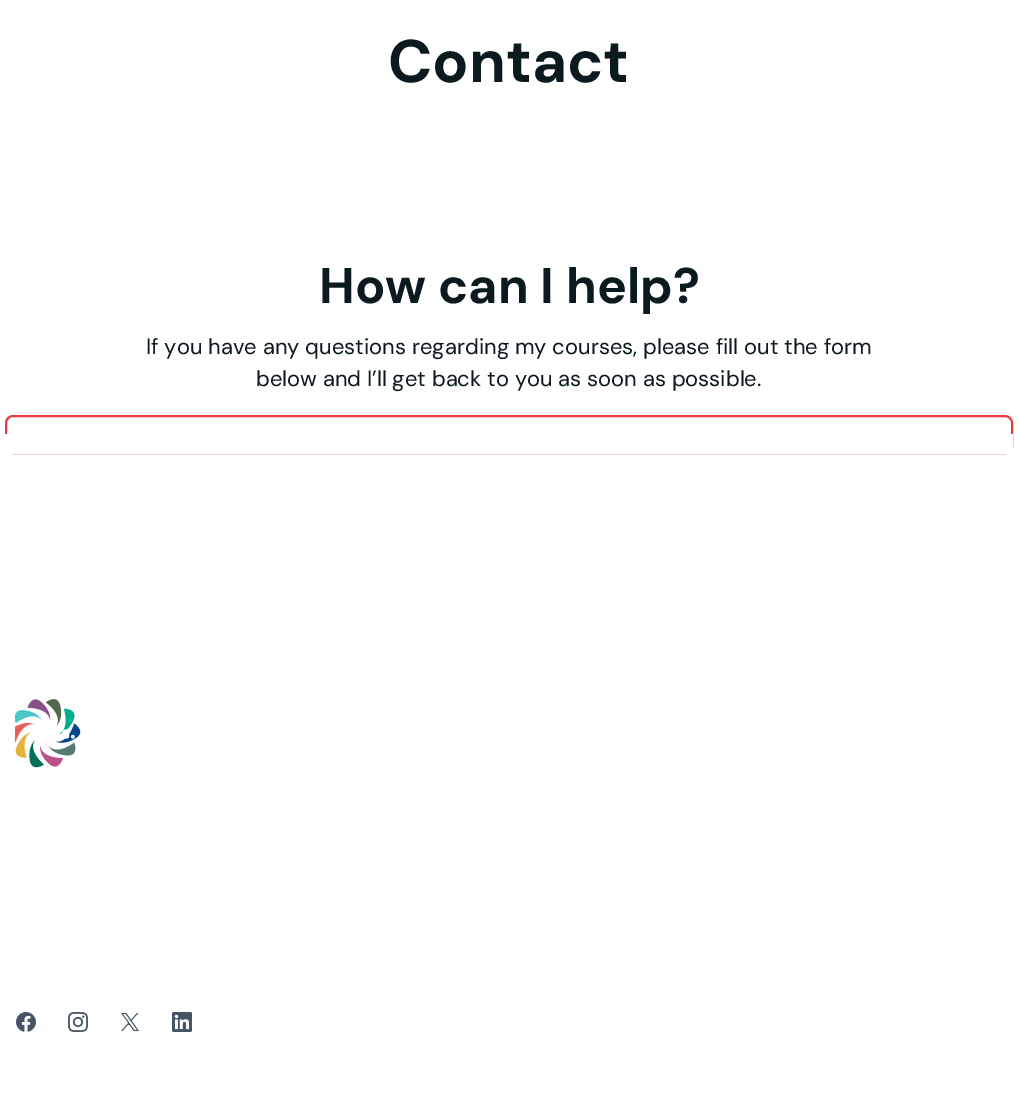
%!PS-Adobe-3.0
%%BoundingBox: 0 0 1018 1097
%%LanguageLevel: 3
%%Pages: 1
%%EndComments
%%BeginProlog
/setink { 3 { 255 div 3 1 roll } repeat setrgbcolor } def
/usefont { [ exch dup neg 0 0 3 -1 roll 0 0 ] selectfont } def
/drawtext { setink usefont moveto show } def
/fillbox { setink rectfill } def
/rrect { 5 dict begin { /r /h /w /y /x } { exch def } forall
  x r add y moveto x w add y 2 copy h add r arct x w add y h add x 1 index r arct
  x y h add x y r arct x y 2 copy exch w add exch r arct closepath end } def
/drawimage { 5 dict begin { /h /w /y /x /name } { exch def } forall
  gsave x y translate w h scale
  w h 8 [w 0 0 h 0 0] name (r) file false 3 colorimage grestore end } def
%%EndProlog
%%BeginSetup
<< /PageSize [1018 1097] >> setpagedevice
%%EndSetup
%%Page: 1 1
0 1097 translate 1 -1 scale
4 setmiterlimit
0 0 1018 1097 255 255 255 fillbox
(Contact) 388 82 /DMSans-Bold 60 11 26 30 drawtext
(How can I help?) 319 303 /DMSans-Bold 50 11 26 30 drawtext
(If you have any questions regarding my courses, please fill out the form) 146 354 /DMSans-Regular 22 11 26 30 drawtext
(below and I’ll get back to you as soon as possible.) 256 386 /DMSans-Regular 22 11 26 30 drawtext
233 61 61 setink
2 setlinewidth
6 416 1006 37 7 rrect stroke
5 434 1008 20 255 255 255 fillbox
(assets/img1.rgb) 15 699 66 69 drawimage
(assets/img2.rgb) 16 1012 20 20 drawimage
(assets/img3.rgb) 68 1012 20 20 drawimage
(assets/img4.rgb) 121 1012 18 20 drawimage
(assets/img5.rgb) 172 1012 20 20 drawimage
showpage
%%EOF
